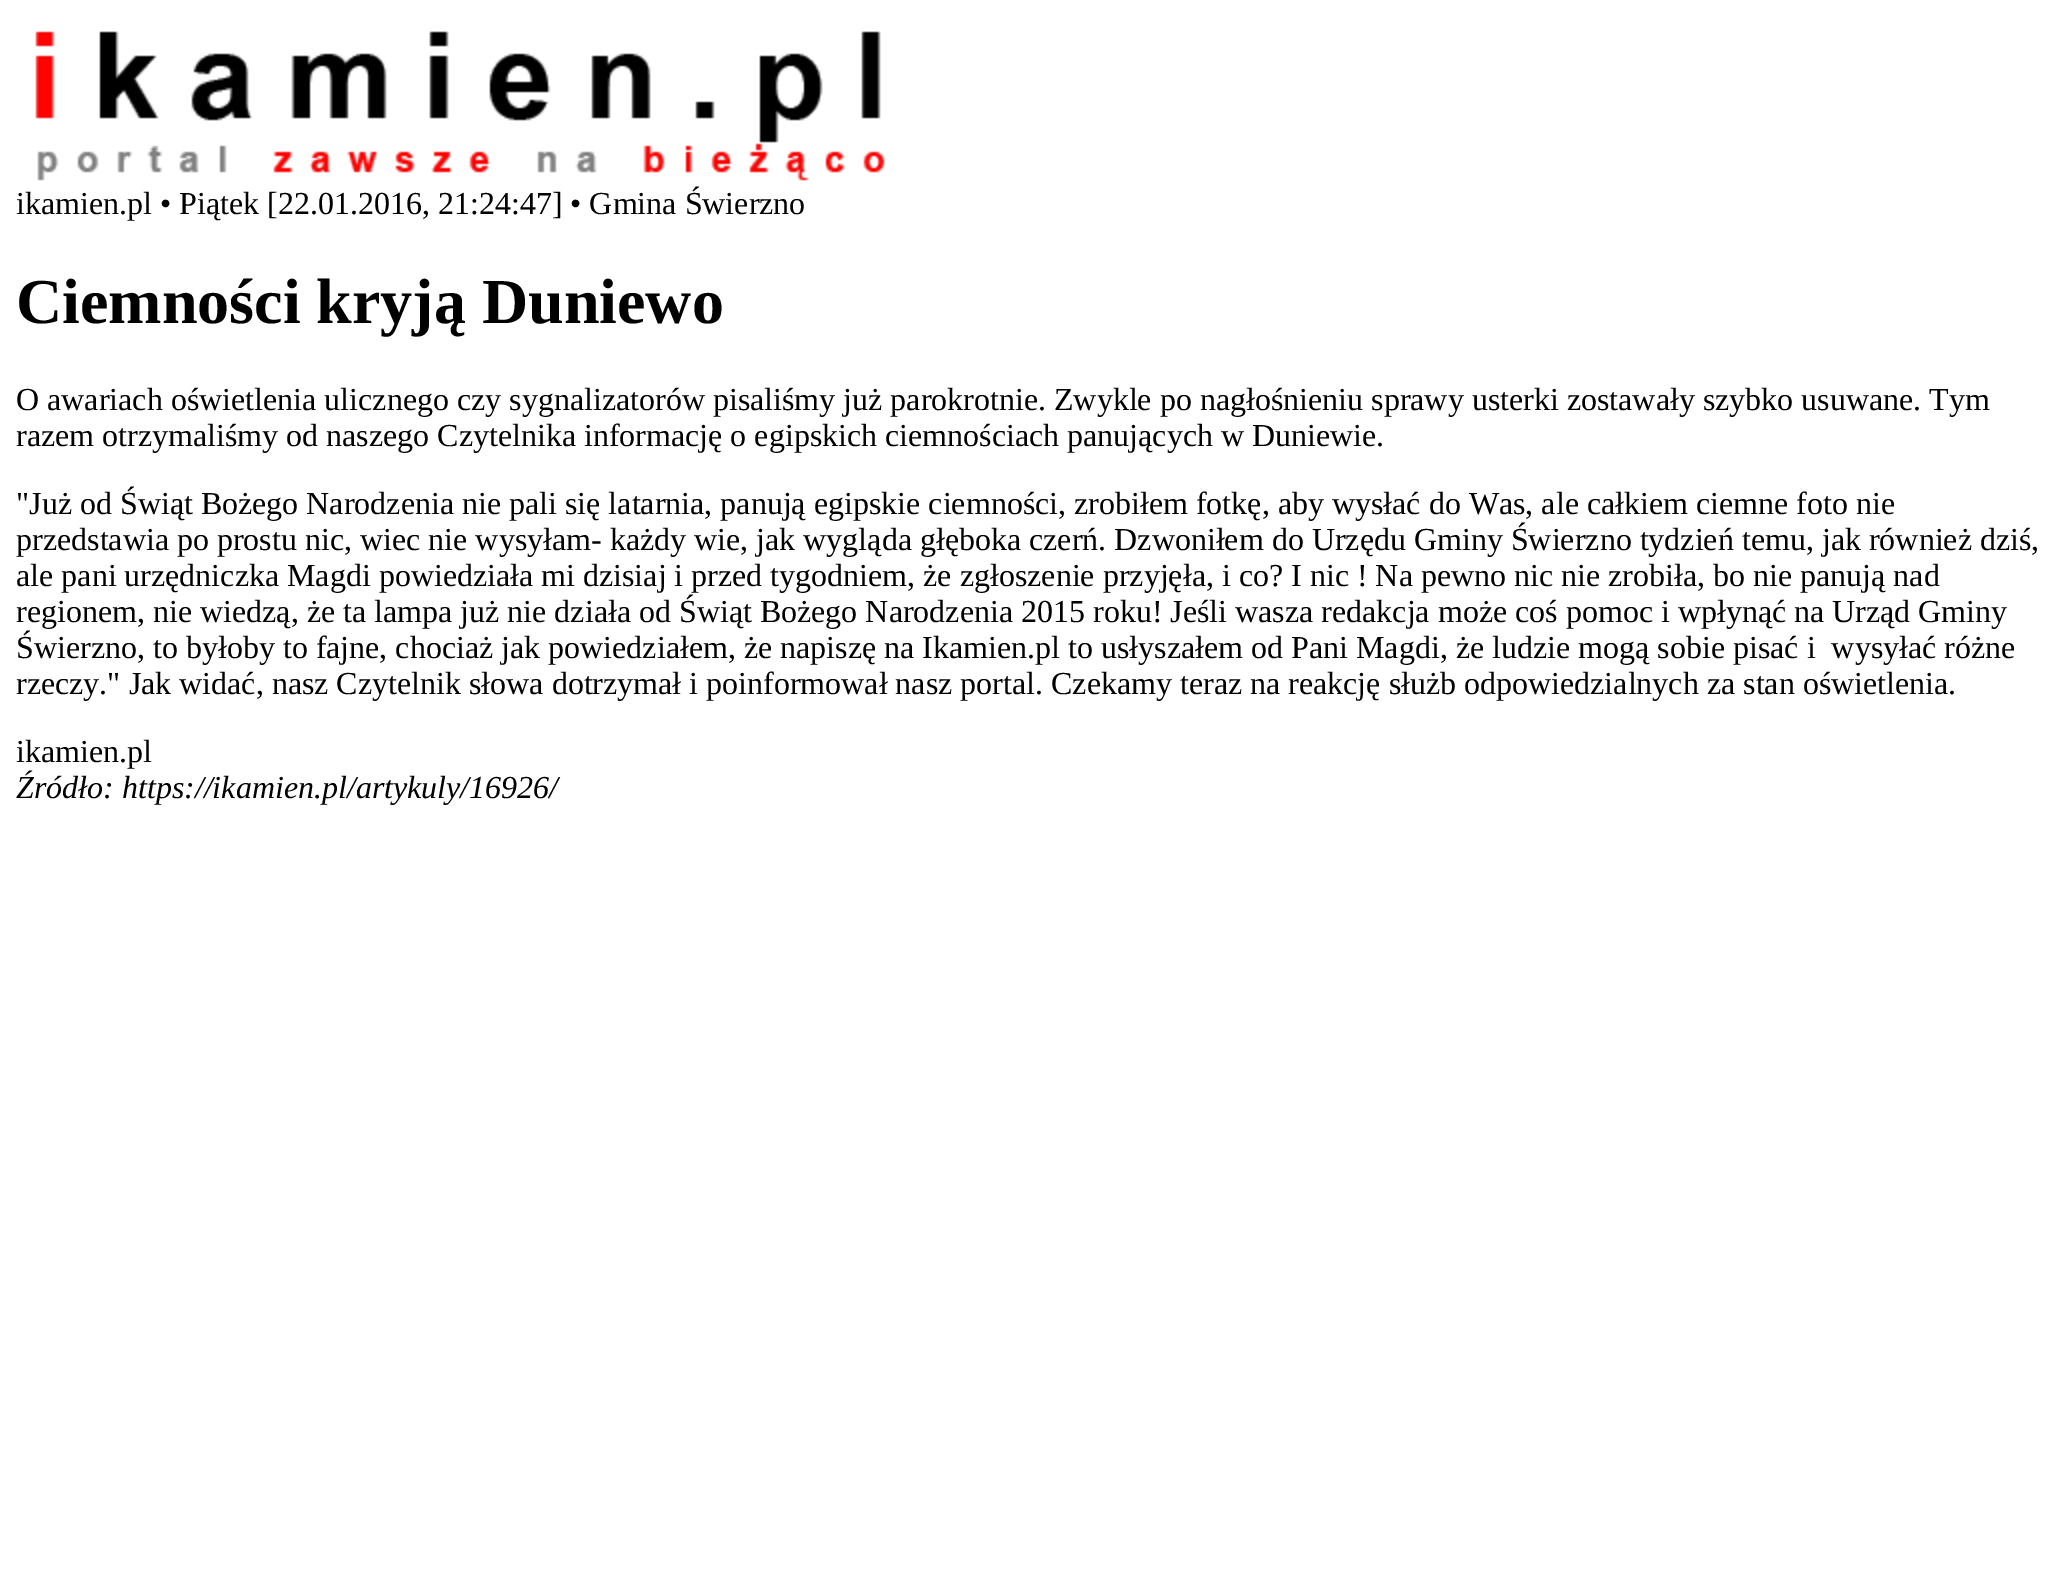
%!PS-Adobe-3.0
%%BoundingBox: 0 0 2057 1590
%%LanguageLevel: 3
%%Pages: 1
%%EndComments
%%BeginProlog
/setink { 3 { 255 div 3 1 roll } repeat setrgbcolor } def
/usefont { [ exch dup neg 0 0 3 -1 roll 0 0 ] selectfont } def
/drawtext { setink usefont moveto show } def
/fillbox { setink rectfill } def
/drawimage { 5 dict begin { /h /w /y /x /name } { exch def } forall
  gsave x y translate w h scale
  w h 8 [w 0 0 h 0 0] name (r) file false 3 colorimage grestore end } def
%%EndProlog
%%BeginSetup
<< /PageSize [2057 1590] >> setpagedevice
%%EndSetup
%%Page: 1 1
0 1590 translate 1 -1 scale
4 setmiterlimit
0 0 2057 1590 255 255 255 fillbox
(assets/img1.rgb) 35 31 850 150 drawimage
(ikamien.pl • Piątek [22.01.2016, 21:24:47] • Gmina Świerzno) 16 214 /LiberationSerif-Regular 32 0 0 0 drawtext
(Ciemności kryją Duniewo) 16 323 /LiberationSerif-Bold 64 0 0 0 drawtext
(O awariach oświetlenia ulicznego czy sygnalizatorów pisaliśmy już parokrotnie. Zwykle po nagłośnieniu sprawy usterki zostawały szybko usuwane. Tym) 16 410 /LiberationSerif-Regular 32 0 0 0 drawtext
(razem otrzymaliśmy od naszego Czytelnika informację o egipskich ciemnościach panujących w Duniewie.) 16 446 /LiberationSerif-Regular 32 0 0 0 drawtext
("Już od Świąt Bożego Narodzenia nie pali się latarnia, panują egipskie ciemności, zrobiłem fotkę, aby wysłać do Was, ale całkiem ciemne foto nie) 16 514 /LiberationSerif-Regular 32 0 0 0 drawtext
(przedstawia po prostu nic, wiec nie wysyłam- każdy wie, jak wygląda głęboka czerń. Dzwoniłem do Urzędu Gminy Świerzno tydzień temu, jak również dziś,) 16 550 /LiberationSerif-Regular 32 0 0 0 drawtext
(ale pani urzędniczka Magdi powiedziała mi dzisiaj i przed tygodniem, że zgłoszenie przyjęła, i co? I nic ! Na pewno nic nie zrobiła, bo nie panują nad) 16 586 /LiberationSerif-Regular 32 0 0 0 drawtext
(regionem, nie wiedzą, że ta lampa już nie działa od Świąt Bożego Narodzenia 2015 roku! Jeśli wasza redakcja może coś pomoc i wpłynąć na Urząd Gminy) 16 622 /LiberationSerif-Regular 32 0 0 0 drawtext
(Świerzno, to byłoby to fajne, chociaż jak powiedziałem, że napiszę na Ikamien.pl to usłyszałem od Pani Magdi, że ludzie mogą sobie pisać i  wysyłać różne) 16 658 /LiberationSerif-Regular 32 0 0 0 drawtext
(rzeczy." Jak widać, nasz Czytelnik słowa dotrzymał i poinformował nasz portal. Czekamy teraz na reakcję służb odpowiedzialnych za stan oświetlenia.) 16 694 /LiberationSerif-Regular 32 0 0 0 drawtext
(ikamien.pl) 16 762 /LiberationSerif-Regular 32 0 0 0 drawtext
(Źródło: https://ikamien.pl/artykuly/16926/) 16 798 /LiberationSerif-Italic 32 0 0 0 drawtext
showpage
%%EOF
